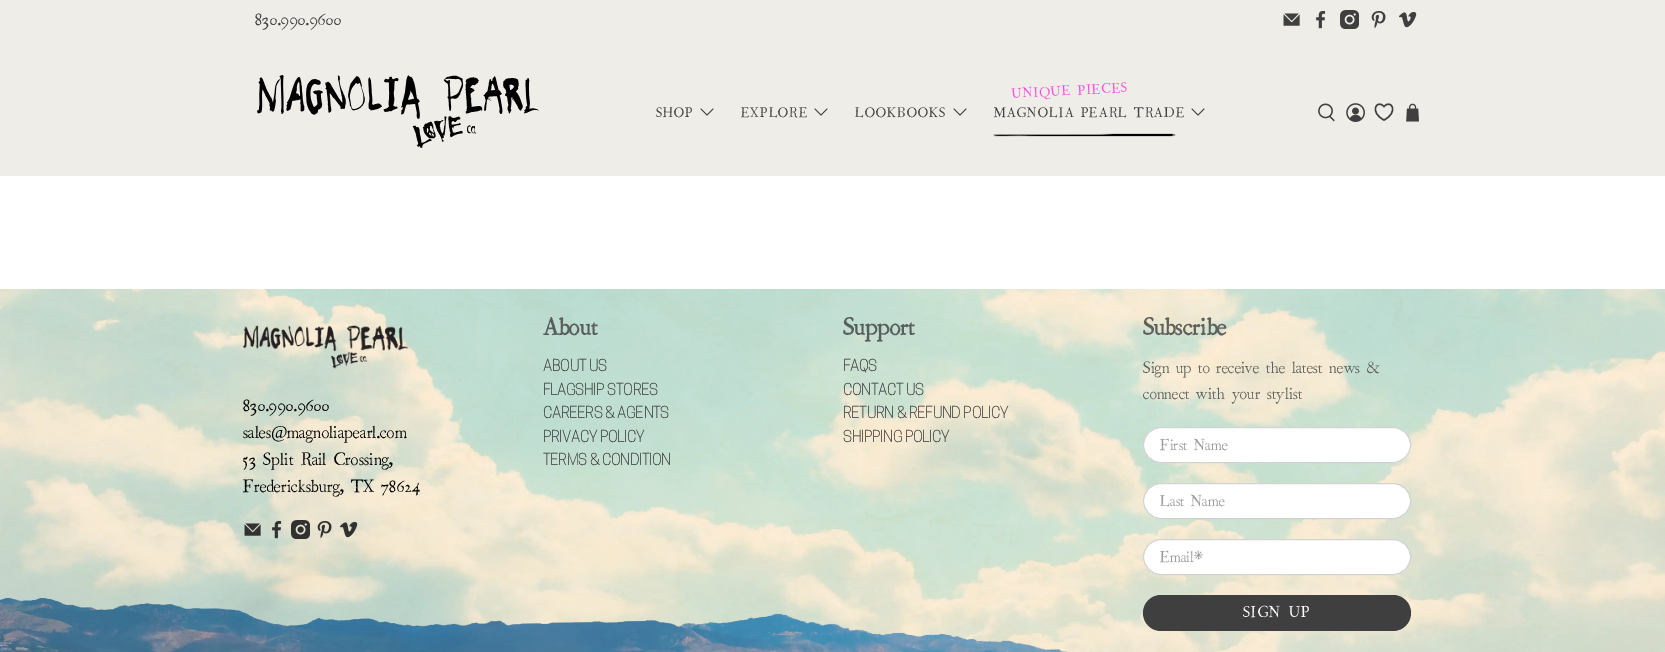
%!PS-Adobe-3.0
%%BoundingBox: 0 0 1665 652
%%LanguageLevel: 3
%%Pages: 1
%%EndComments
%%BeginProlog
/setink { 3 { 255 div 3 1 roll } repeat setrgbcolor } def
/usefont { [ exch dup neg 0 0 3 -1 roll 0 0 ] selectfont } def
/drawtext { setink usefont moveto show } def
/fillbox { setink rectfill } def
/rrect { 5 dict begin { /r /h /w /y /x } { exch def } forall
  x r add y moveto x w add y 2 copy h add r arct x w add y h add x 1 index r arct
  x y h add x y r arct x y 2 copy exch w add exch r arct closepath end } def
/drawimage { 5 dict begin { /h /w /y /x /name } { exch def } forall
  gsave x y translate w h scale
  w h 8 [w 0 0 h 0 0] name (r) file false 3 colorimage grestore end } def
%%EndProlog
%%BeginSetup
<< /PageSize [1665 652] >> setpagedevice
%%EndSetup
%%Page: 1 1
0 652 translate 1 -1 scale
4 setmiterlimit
0 0 1665 652 255 255 255 fillbox
0 0 1665 176 238 237 232 fillbox
(830.990.9600) 255 25 /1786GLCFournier-Regular 18 63 63 63 drawtext
(assets/img1.rgb) 1283 13 17 13 drawimage
(assets/img2.rgb) 1316 11 10 18 drawimage
(assets/img3.rgb) 1340 10 19 19 drawimage
(assets/img4.rgb) 1371 11 15 18 drawimage
(assets/img5.rgb) 1399 12 18 16 drawimage
(assets/img6.rgb) 257 75 282 73 drawimage
/1786GLCFournier-Regular 14 usefont
656 117 moveto 1 0 (SHOP) ashow
(assets/img7.rgb) 700 108 14 8 drawimage
741 117 moveto 1 0 (EXPLORE) ashow
(assets/img7.rgb) 814 108 14 8 drawimage
855 117 moveto 1 0 (LOOKBOOKS) ashow
(assets/img7.rgb) 953 108 14 8 drawimage
255 74 227 setink
gsave 1012 98 translate -3 rotate 0 0 moveto 1 0 (UNIQUE PIECES) ashow grestore
63 63 63 setink
994 117 moveto 1 0 (MAGNOLIA PEARL TRADE) ashow
(assets/img7.rgb) 1191 108 14 8 drawimage
(assets/img8.rgb) 993 133 183 4 drawimage
(assets/img9.rgb) 1318 103 17 19 drawimage
(assets/img10.rgb) 1346 103 19 19 drawimage
1.4 setlinewidth
1384 120 moveto 1369 112.5 1376.5 98.5 1384 106.5 curveto 1391.5 98.5 1399 112.5 1384 120 curveto closepath stroke
(assets/img11.rgb) 1406 103 13 19 drawimage
(assets/img12.rgb) 0 289 1665 363 drawimage
(assets/img13.rgb) 243 325 166 44 drawimage
(830.990.9600) 243 411 /1786GLCFournier-Regular 18 0 0 0 drawtext
(sales) 243 438 /1786GLCFournier-Regular 18 0 0 0 drawtext
(@) 271 438 /LiberationSerif-Regular 18 0 0 0 drawtext
(magnoliapearl.com) 287 438 /1786GLCFournier-Regular 18 0 0 0 drawtext
(53 Split Rail Crossing,) 243 465 /1786GLCFournier-Regular 18 0 0 0 drawtext
(Fredericksburg, TX 78624) 243 492 /1786GLCFournier-Regular 18 0 0 0 drawtext
(assets/img14.rgb) 244 523 17 13 drawimage
(assets/img15.rgb) 272 521 10 18 drawimage
(assets/img16.rgb) 291 520 19 19 drawimage
(assets/img17.rgb) 317 521 15 18 drawimage
(assets/img18.rgb) 340 522 18 16 drawimage
(About) 543 335 /1786GLCFournier-Bold 25 88 94 92 drawtext
(ABOUT US) 543 371 /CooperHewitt-Bold 15 49 49 49 drawtext
(FLAGSHIP STORES) 543 395 /CooperHewitt-Bold 15 49 49 49 drawtext
(CAREERS & AGENTS) 543 418 /CooperHewitt-Bold 15 49 49 49 drawtext
(PRIVACY POLICY) 543 442 /CooperHewitt-Bold 15 49 49 49 drawtext
(TERMS & CONDITION) 543 465 /CooperHewitt-Bold 15 49 49 49 drawtext
(Support) 843 335 /1786GLCFournier-Bold 25 88 94 92 drawtext
(FAQS) 843 371 /CooperHewitt-Bold 15 49 49 49 drawtext
(CONTACT US) 843 395 /CooperHewitt-Bold 15 49 49 49 drawtext
(RETURN & REFUND POLICY) 843 418 /CooperHewitt-Bold 15 49 49 49 drawtext
(SHIPPING POLICY) 843 442 /CooperHewitt-Bold 15 49 49 49 drawtext
(Subscribe) 1143 335 /1786GLCFournier-Bold 25 95 96 92 drawtext
(Sign up to receive the latest news &) 1143 373 /1786GLCFournier-Regular 17 95 96 92 drawtext
(connect with your stylist) 1143 399 /1786GLCFournier-Regular 17 95 96 92 drawtext
255 255 255 setink
1143.5 427.5 267 35 17.5 rrect gsave fill grestore
211 211 211 setink
1 setlinewidth
stroke
gsave
1160 436 234 19 rectclip
(First Name) 1160 450 /1786GLCFournier-Regular 16 155 155 155 drawtext
grestore
255 255 255 setink
1143.5 483.5 267 35 17.5 rrect gsave fill grestore
211 211 211 setink
stroke
(Last Name) 1160 506 /1786GLCFournier-Regular 16 155 155 155 drawtext
255 255 255 setink
1143.5 539.5 267 35 17.5 rrect gsave fill grestore
211 211 211 setink
stroke
(Email*) 1160 562 /1786GLCFournier-Regular 16 155 155 155 drawtext
63 63 63 setink
1143 595 268 36 18 rrect fill
255 255 255 setink
1243 617 moveto 1 0 (SIGN UP) ashow
showpage
%%EOF
